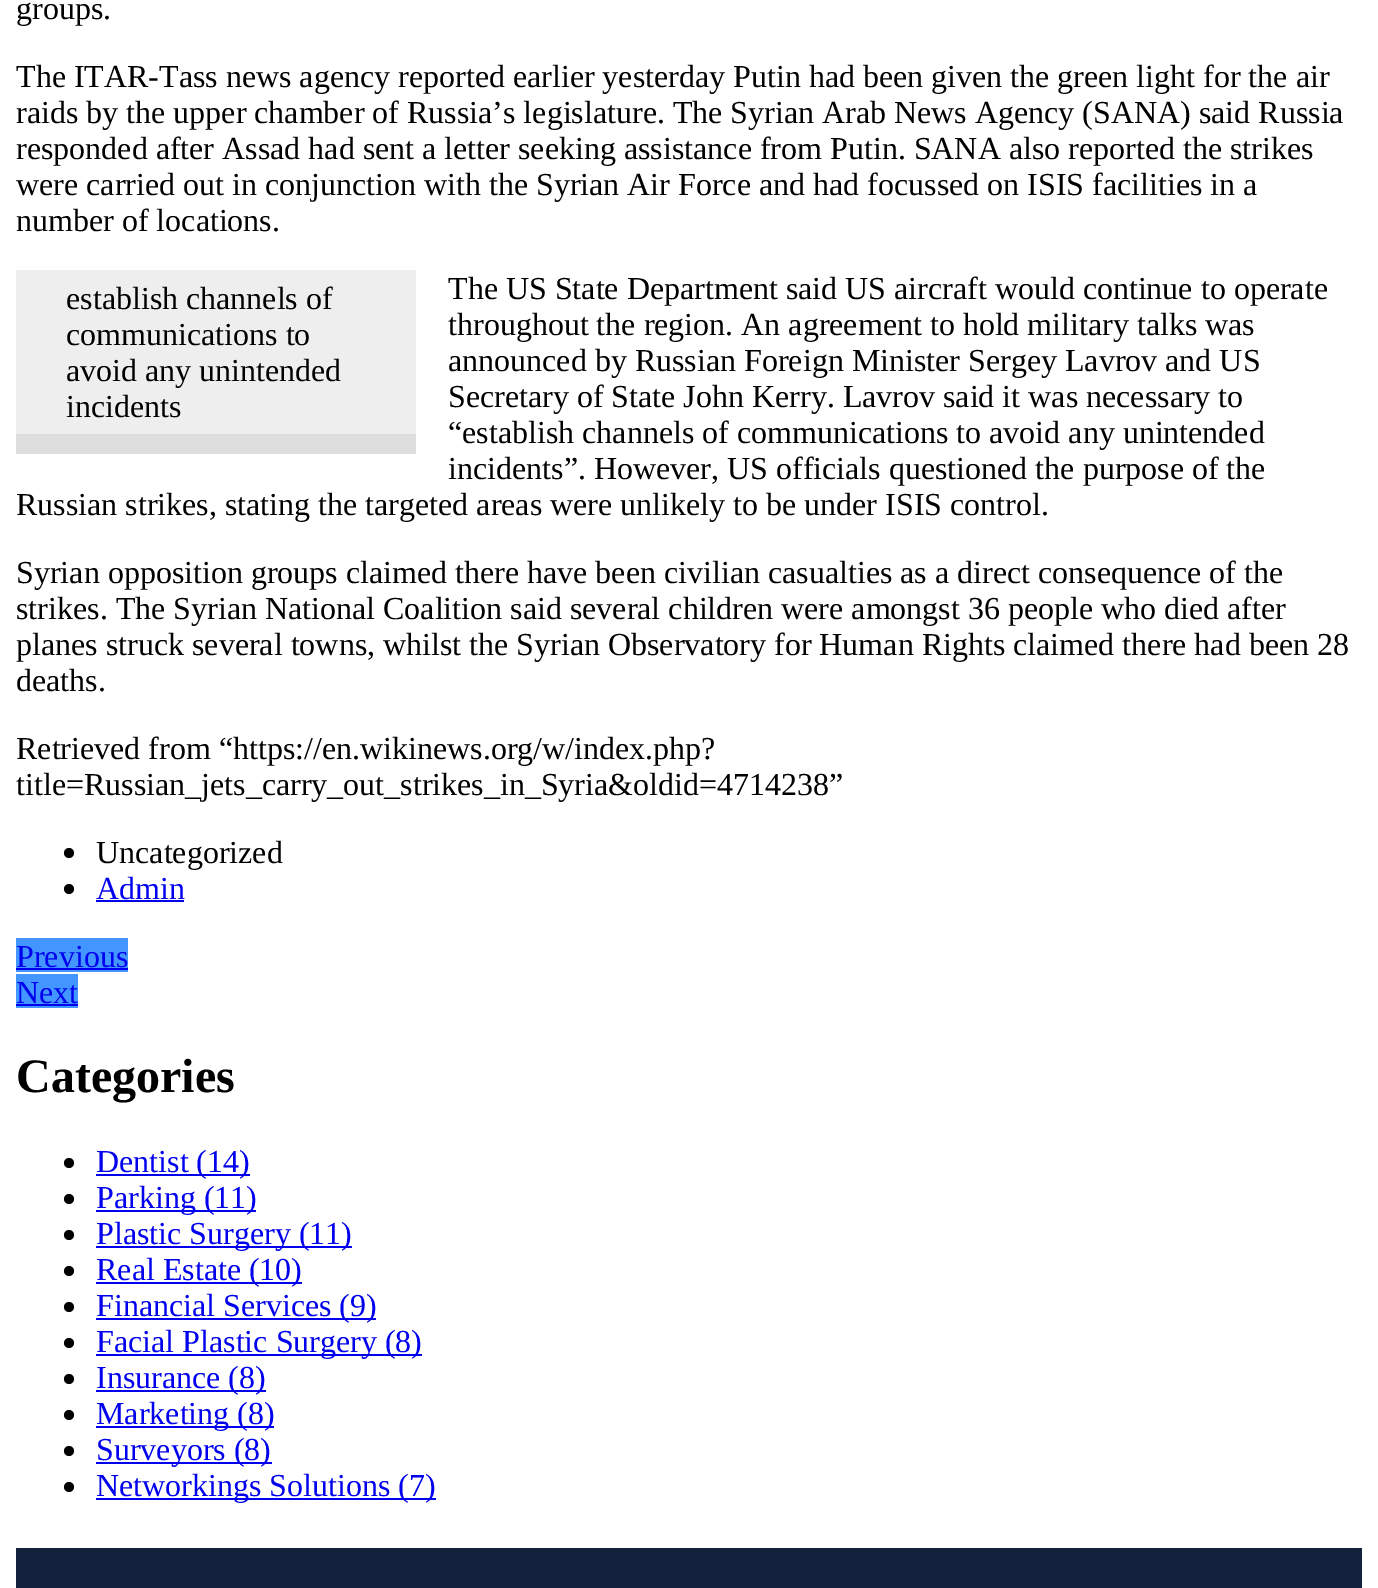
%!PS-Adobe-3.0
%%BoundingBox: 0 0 1378 1588
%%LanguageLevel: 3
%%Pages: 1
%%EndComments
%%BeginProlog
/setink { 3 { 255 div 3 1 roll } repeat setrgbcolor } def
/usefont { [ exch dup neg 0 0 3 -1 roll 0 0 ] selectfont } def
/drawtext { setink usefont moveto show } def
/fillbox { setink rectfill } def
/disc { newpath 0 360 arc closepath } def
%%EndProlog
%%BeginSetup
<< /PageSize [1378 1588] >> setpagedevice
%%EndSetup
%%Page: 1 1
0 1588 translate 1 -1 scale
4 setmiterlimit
0 0 1378 1588 255 255 255 fillbox
(groups.) 16 19 /LiberationSerif-Regular 32 0 0 0 drawtext
(The ITAR-Tass news agency reported earlier yesterday Putin had been given the green light for the air) 16 87 /LiberationSerif-Regular 32 0 0 0 drawtext
(raids by the upper chamber of Russia’s legislature. The Syrian Arab News Agency \(SANA\) said Russia) 16 123 /LiberationSerif-Regular 32 0 0 0 drawtext
(responded after Assad had sent a letter seeking assistance from Putin. SANA also reported the strikes) 16 159 /LiberationSerif-Regular 32 0 0 0 drawtext
(were carried out in conjunction with the Syrian Air Force and had focussed on ISIS facilities in a) 16 195 /LiberationSerif-Regular 32 0 0 0 drawtext
(number of locations.) 16 231 /LiberationSerif-Regular 32 0 0 0 drawtext
(The US State Department said US aircraft would continue to operate) 448 299 /LiberationSerif-Regular 32 0 0 0 drawtext
(throughout the region. An agreement to hold military talks was) 448 335 /LiberationSerif-Regular 32 0 0 0 drawtext
(announced by Russian Foreign Minister Sergey Lavrov and US) 448 371 /LiberationSerif-Regular 32 0 0 0 drawtext
(Secretary of State John Kerry. Lavrov said it was necessary to) 448 407 /LiberationSerif-Regular 32 0 0 0 drawtext
(“establish channels of communications to avoid any unintended) 448 443 /LiberationSerif-Regular 32 0 0 0 drawtext
(incidents”. However, US officials questioned the purpose of the) 448 479 /LiberationSerif-Regular 32 0 0 0 drawtext
(Russian strikes, stating the targeted areas were unlikely to be under ISIS control.) 16 515 /LiberationSerif-Regular 32 0 0 0 drawtext
16 270 400 164 238 238 238 fillbox
(establish channels of) 66 309 /LiberationSerif-Regular 32 0 0 0 drawtext
(communications to) 66 345 /LiberationSerif-Regular 32 0 0 0 drawtext
(avoid any unintended) 66 381 /LiberationSerif-Regular 32 0 0 0 drawtext
(incidents) 66 417 /LiberationSerif-Regular 32 0 0 0 drawtext
16 434 400 20 221 221 221 fillbox
(Syrian opposition groups claimed there have been civilian casualties as a direct consequence of the) 16 583 /LiberationSerif-Regular 32 0 0 0 drawtext
(strikes. The Syrian National Coalition said several children were amongst 36 people who died after) 16 619 /LiberationSerif-Regular 32 0 0 0 drawtext
(planes struck several towns, whilst the Syrian Observatory for Human Rights claimed there had been 28) 16 655 /LiberationSerif-Regular 32 0 0 0 drawtext
(deaths.) 16 691 /LiberationSerif-Regular 32 0 0 0 drawtext
(Retrieved from “https://en.wikinews.org/w/index.php?) 16 759 /LiberationSerif-Regular 32 0 0 0 drawtext
(title=Russian_jets_carry_out_strikes_in_Syria&oldid=4714238”) 16 795 /LiberationSerif-Regular 32 0 0 0 drawtext
69 853 5 disc fill
(Uncategorized) 96 863 /LiberationSerif-Regular 32 0 0 0 drawtext
69 889 5 disc fill
(Admin) 96 899 /LiberationSerif-Regular 32 0 0 238 drawtext
96 900 88 2 0 0 238 fillbox
16 938 112 34 67 150 255 fillbox
(Previous) 16 967 /LiberationSerif-Regular 32 0 0 238 drawtext
16 968 112 2 0 0 238 fillbox
16 974 62 34 67 150 255 fillbox
(Next) 16 1003 /LiberationSerif-Regular 32 0 0 238 drawtext
16 1004 62 2 0 0 238 fillbox
(Categories) 16 1092 /LiberationSerif-Bold 48 0 0 0 drawtext
69 1163 5 disc fill
96 1174 154 2 0 0 238 fillbox
(Dentist \(14\)) 96 1172 /LiberationSerif-Regular 32 0 0 238 drawtext
0 0 0 setink
69 1199 5 disc fill
96 1210 160 2 0 0 238 fillbox
(Parking \(11\)) 96 1208 /LiberationSerif-Regular 32 0 0 238 drawtext
0 0 0 setink
69 1235 5 disc fill
96 1246 256 2 0 0 238 fillbox
(Plastic Surgery \(11\)) 96 1244 /LiberationSerif-Regular 32 0 0 238 drawtext
0 0 0 setink
69 1271 5 disc fill
96 1282 206 2 0 0 238 fillbox
(Real Estate \(10\)) 96 1280 /LiberationSerif-Regular 32 0 0 238 drawtext
0 0 0 setink
69 1307 5 disc fill
96 1318 280 2 0 0 238 fillbox
(Financial Services \(9\)) 96 1316 /LiberationSerif-Regular 32 0 0 238 drawtext
0 0 0 setink
69 1343 5 disc fill
96 1354 326 2 0 0 238 fillbox
(Facial Plastic Surgery \(8\)) 96 1352 /LiberationSerif-Regular 32 0 0 238 drawtext
0 0 0 setink
69 1379 5 disc fill
96 1390 170 2 0 0 238 fillbox
(Insurance \(8\)) 96 1388 /LiberationSerif-Regular 32 0 0 238 drawtext
0 0 0 setink
69 1415 5 disc fill
96 1426 178 2 0 0 238 fillbox
(Marketing \(8\)) 96 1424 /LiberationSerif-Regular 32 0 0 238 drawtext
0 0 0 setink
69 1451 5 disc fill
96 1462 176 2 0 0 238 fillbox
(Surveyors \(8\)) 96 1460 /LiberationSerif-Regular 32 0 0 238 drawtext
0 0 0 setink
69 1487 5 disc fill
96 1498 340 2 0 0 238 fillbox
(Networkings Solutions \(7\)) 96 1496 /LiberationSerif-Regular 32 0 0 238 drawtext
16 1548 1346 40 20 33 61 fillbox
showpage
%%EOF
